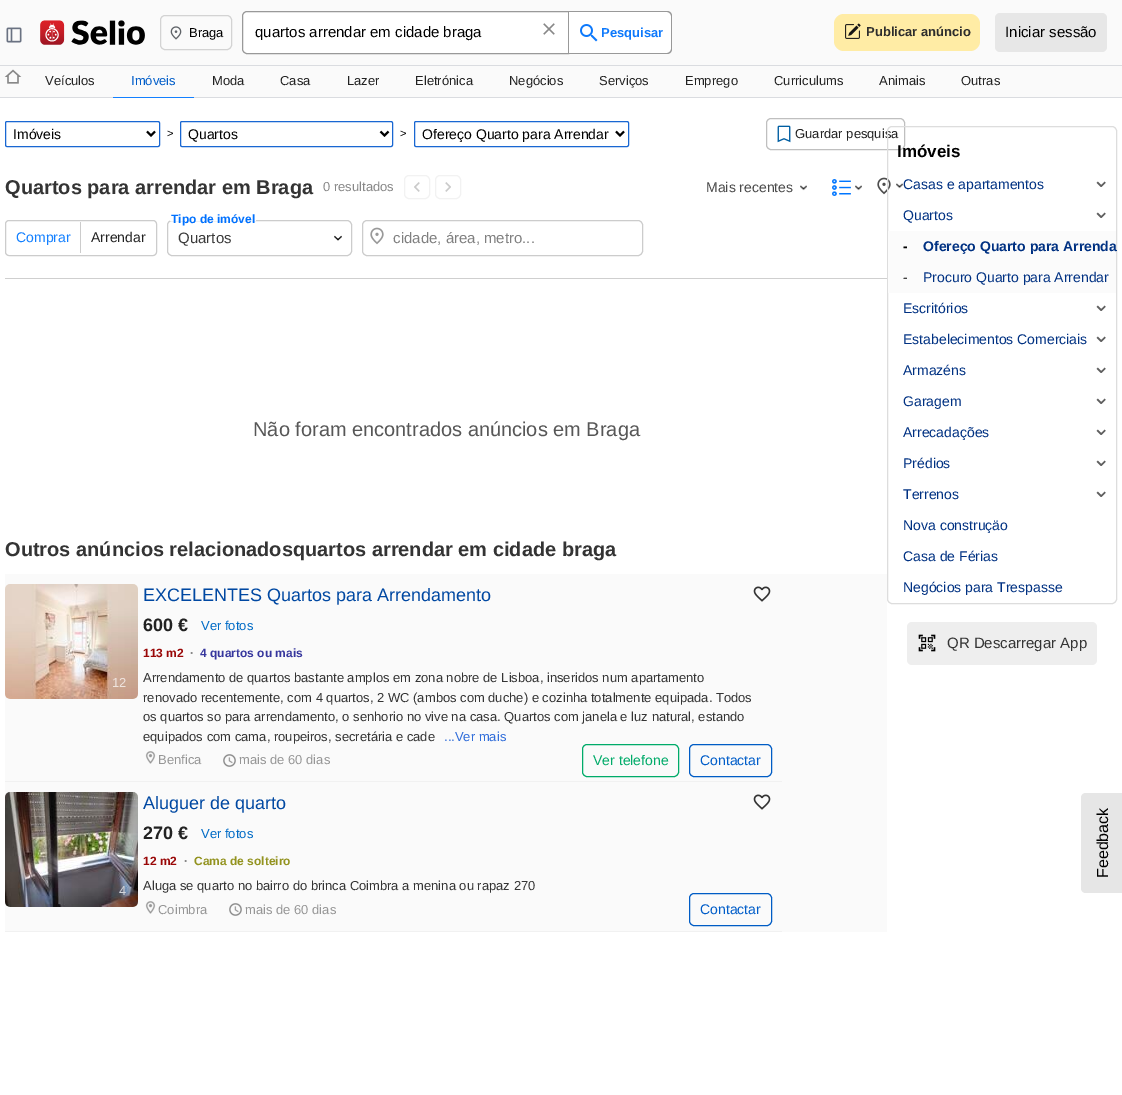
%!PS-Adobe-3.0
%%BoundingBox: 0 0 1122 1095
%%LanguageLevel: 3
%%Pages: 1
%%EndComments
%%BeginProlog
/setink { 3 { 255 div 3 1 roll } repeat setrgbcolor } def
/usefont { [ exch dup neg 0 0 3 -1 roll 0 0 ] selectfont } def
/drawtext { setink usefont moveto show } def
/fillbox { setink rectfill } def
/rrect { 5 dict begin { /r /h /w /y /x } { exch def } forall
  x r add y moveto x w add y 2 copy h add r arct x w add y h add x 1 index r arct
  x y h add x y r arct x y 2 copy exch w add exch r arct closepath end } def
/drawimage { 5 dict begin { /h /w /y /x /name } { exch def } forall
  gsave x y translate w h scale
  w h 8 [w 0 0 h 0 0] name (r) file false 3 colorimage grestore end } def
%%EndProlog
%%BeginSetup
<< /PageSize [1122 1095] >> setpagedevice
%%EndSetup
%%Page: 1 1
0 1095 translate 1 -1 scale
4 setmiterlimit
0 0 1122 1095 255 255 255 fillbox
0 0 1122 65 250 250 250 fillbox
0 65 1122 1 218 220 224 fillbox
(assets/img1.rgb) 6 27 16 16 drawimage
(assets/img2.rgb) 40 20 105 25 drawimage
211 211 211 setink
160.5 15.5 71 34 4.5 rrect stroke
(assets/img3.rgb) 170 26 12 14 drawimage
(Braga) 189 37 /LiberationSans-Regular 13 0 0 0 drawtext
255 255 255 setink
247 11.5 moveto 568.5 11.5 lineto 568.5 53.5 lineto 247 53.5 lineto 244.5 53.5 242.5 51.5 242.5 49 curveto 242.5 16 lineto 242.5 13.5 244.5 11.5 247 11.5 curveto closepath gsave fill grestore
153 153 153 setink
stroke
(quartos arrendar em cidade braga) 255 37 /LiberationSans-Regular 15 0 0 0 drawtext
(assets/img4.rgb) 543 23 12 12 drawimage
255 255 255 setink
569 11 moveto 667 11 lineto 670 11 672 13 672 16 curveto 672 49 lineto 672 52 670 54 667 54 curveto 569 54 lineto closepath fill
153 153 153 setink
569 11 moveto 667 11 lineto 670 11 672 13 672 16 curveto 672 49 lineto 672 52 670 54 667 54 curveto 569 54 lineto closepath 569 12 moveto 667 12 lineto 669 12 671 14 671 16 curveto 671 49 lineto 671 51 669 53 667 53 curveto 569 53 lineto closepath eofill
(assets/img5.rgb) 580 24 18 18 drawimage
(Pesquisar) 601 37 /LiberationSans-Bold 13 13 121 252 drawtext
255 236 165 setink
834 14 146 37 10 rrect fill
(assets/img6.rgb) 845 23 16 16 drawimage
(Publicar anúncio) 866 36 /LiberationSans-Bold 13 45 45 45 drawtext
231 231 231 setink
995 13 112 39 5 rrect fill
(Iniciar sessão) 1005 37 /LiberationSans-Regular 15 0 0 0 drawtext
0 66 1122 31 250 250 250 fillbox
0 97 1122 1 218 220 224 fillbox
(assets/img7.rgb) 4 69 18 15 drawimage
(Veículos) 45 85 /LiberationSans-Regular 13 34 34 34 drawtext
113 97 81 1 19 128 255 fillbox
(Imóveis) 131 85 /LiberationSans-Regular 13 0 93 201 drawtext
(Moda) 212 85 /LiberationSans-Regular 13 34 34 34 drawtext
(Casa) 280 85 /LiberationSans-Regular 13 34 34 34 drawtext
(Lazer) 347 85 /LiberationSans-Regular 13 34 34 34 drawtext
(Eletrónica) 415 85 /LiberationSans-Regular 13 34 34 34 drawtext
(Negócios) 509 85 /LiberationSans-Regular 13 34 34 34 drawtext
(Serviços) 599 85 /LiberationSans-Regular 13 34 34 34 drawtext
(Emprego) 685 85 /LiberationSans-Regular 13 34 34 34 drawtext
(Curriculums) 774 85 /LiberationSans-Regular 13 34 34 34 drawtext
(Animais) 879 85 /LiberationSans-Regular 13 34 34 34 drawtext
(Outras) 961 85 /LiberationSans-Regular 13 34 34 34 drawtext
25 103 210 setink
5.5 121.5 154 25 1.5 rrect stroke
0 0 0 setink
2 setlinewidth
147 131.5 moveto 151 135.5 lineto 155 131.5 lineto stroke
(Imóveis) 13 139 /LiberationSans-Regular 14 0 0 0 drawtext
(>) 167 137 /LiberationSans-Regular 11 0 0 0 drawtext
25 103 210 setink
1 setlinewidth
180.5 121.5 212 25 1.5 rrect stroke
0 0 0 setink
2 setlinewidth
380.5 131.5 moveto 384.5 135.5 lineto 388.5 131.5 lineto stroke
(Quartos) 188 139 /LiberationSans-Regular 14 0 0 0 drawtext
(>) 400 137 /LiberationSans-Regular 11 0 0 0 drawtext
25 103 210 setink
1 setlinewidth
414.5 121.5 214 25 1.5 rrect stroke
0 0 0 setink
2 setlinewidth
616 131.5 moveto 620 135.5 lineto 624 131.5 lineto stroke
(Ofereço Quarto para Arrendar) 422 139 /LiberationSans-Regular 14 0 0 0 drawtext
191 191 191 setink
1 setlinewidth
766.5 118.5 138 31 4.5 rrect stroke
(assets/img8.rgb) 777 125 14 18 drawimage
(Guardar pesquisa) 795 138 /LiberationSans-Regular 13 34 34 34 drawtext
(Quartos para arrendar em Braga) 5 194 /LiberationSans-Bold 20 52 52 52 drawtext
(0 resultados) 323 191 /LiberationSans-Regular 13 136 136 136 drawtext
242 242 242 setink
404.5 175.5 25 23 4.5 rrect stroke
(assets/img9.rgb) 414 182 6 10 drawimage
435.5 175.5 25 23 4.5 rrect stroke
(assets/img10.rgb) 445 182 6 10 drawimage
(assets/img11.rgb) 800 185 7 6 drawimage
(Mais recentes) 706 192 /LiberationSans-Regular 14 74 74 74 drawtext
(assets/img11.rgb) 855 185 7 6 drawimage
(assets/img12.rgb) 832 179 19 17 drawimage
(assets/img11.rgb) 896 183 7 6 drawimage
(assets/img13.rgb) 877 177 14 18 drawimage
5 278 882 1 207 207 207 fillbox
204 204 204 setink
5.5 220.5 151 35 3.5 rrect stroke
80 222 1 31 204 204 204 fillbox
(Comprar) 16 242 /LiberationSans-Regular 14 19 128 255 drawtext
(Arrendar) 91 242 /LiberationSans-Regular 14 34 34 34 drawtext
(assets/img14.rgb) 334 235 8 6 drawimage
204 204 204 setink
167.5 220.5 184 35 4.5 rrect stroke
170 220 86 1 255 255 255 fillbox
(Tipo de imóvel) 171 223 /LiberationSans-Bold 12 0 113 255 drawtext
(Quartos) 178 243 /LiberationSans-Regular 15 58 58 58 drawtext
204 204 204 setink
362.5 220.5 280 35 4.5 rrect stroke
(assets/img15.rgb) 370 227 14 18 drawimage
(cidade, área, metro...) 393 243 /LiberationSans-Regular 15 128 128 128 drawtext
(Não foram encontrados anúncios em Braga) 253 436 /LiberationSans-Regular 20 87 87 87 drawtext
(Outros anúncios relacionadosquartos arrendar em cidade braga) 5 556 /LiberationSans-Bold 20 52 52 52 drawtext
5 574 882 358 250 250 250 fillbox
5 781 777 1 241 241 241 fillbox
(assets/img16.rgb) 5 584 133 115 drawimage
(12) 112 687 /LiberationSans-Regular 13 239 228 222 drawtext
(EXCELENTES Quartos para Arrendamento) 143 601 /LiberationSans-Regular 18 0 72 162 drawtext
(assets/img17.rgb) 753 586 18 16 drawimage
(600 €) 143 631 /LiberationSans-Bold 18 34 34 34 drawtext
(Ver fotos) 201 630 /LiberationSans-Regular 13 0 107 198 drawtext
(113 m2) 143 657 /LiberationSans-Bold 12 153 7 7 drawtext
(·) 190 657 /LiberationSans-Bold 12 136 136 136 drawtext
(4 quartos ou mais) 200 657 /LiberationSans-Bold 12 54 54 157 drawtext
(Arrendamento de quartos bastante amplos em zona nobre de Lisboa, inseridos num apartamento) 143 682 /LiberationSans-Regular 13 52 52 52 drawtext
(renovado recentemente, com 4 quartos, 2 WC \(ambos com duche\) e cozinha totalmente equipada. Todos) 143 702 /LiberationSans-Regular 13 52 52 52 drawtext
(os quartos so para arrendamento, o senhorio no vive na casa. Quartos com janela e luz natural, estando) 143 721 /LiberationSans-Regular 13 52 52 52 drawtext
(equipados com cama, roupeiros, secretária e cade) 143 741 /LiberationSans-Regular 13 52 52 52 drawtext
(...Ver mais) 444 741 /LiberationSans-Regular 13 48 109 218 drawtext
(assets/img18.rgb) 145 751 11 13 drawimage
(Benfica) 158 764 /LiberationSans-Regular 13 150 150 150 drawtext
(assets/img19.rgb) 223 754 13 13 drawimage
(mais de 60 dias) 239 764 /LiberationSans-Regular 13 150 150 150 drawtext
0 171 105 setink
582.5 744.5 96 32 4.5 rrect stroke
(Ver telefone) 593 765 /LiberationSans-Regular 14 0 171 105 drawtext
0 92 197 setink
689.5 744.5 82 32 4.5 rrect stroke
(Contactar) 700 765 /LiberationSans-Regular 14 0 93 201 drawtext
5 931 777 1 241 241 241 fillbox
(assets/img20.rgb) 5 792 133 115 drawimage
(4) 119 895 /LiberationSans-Regular 13 210 213 219 drawtext
(Aluguer de quarto) 143 809 /LiberationSans-Regular 18 0 72 162 drawtext
(assets/img17.rgb) 753 794 18 16 drawimage
(270 €) 143 839 /LiberationSans-Bold 18 34 34 34 drawtext
(Ver fotos) 201 838 /LiberationSans-Regular 13 0 107 198 drawtext
(12 m2) 143 865 /LiberationSans-Bold 12 153 7 7 drawtext
(·) 184 865 /LiberationSans-Bold 12 136 136 136 drawtext
(Cama de solteiro) 194 865 /LiberationSans-Bold 12 147 147 31 drawtext
(Aluga se quarto no bairro do brinca Coimbra a menina ou rapaz 270) 143 890 /LiberationSans-Regular 13 52 52 52 drawtext
(assets/img18.rgb) 145 901 11 13 drawimage
(Coimbra) 158 914 /LiberationSans-Regular 13 150 150 150 drawtext
(assets/img19.rgb) 229 903 13 13 drawimage
(mais de 60 dias) 245 914 /LiberationSans-Regular 13 150 150 150 drawtext
0 92 197 setink
689.5 893.5 82 32 4.5 rrect stroke
(Contactar) 700 914 /LiberationSans-Regular 14 0 93 201 drawtext
221 221 221 setink
887.5 126.5 229 477 4.5 rrect stroke
(Imóveis) 897 157 /LiberationSans-Bold 17 0 0 0 drawtext
(Casas e apartamentos) 903 189 /LiberationSans-Regular 14 0 49 130 drawtext
(⌄) 1092 187 /DejaVuSans-Regular 22 95 95 95 drawtext
(Quartos) 903 220 /LiberationSans-Regular 14 0 49 130 drawtext
(⌄) 1092 218 /DejaVuSans-Regular 22 95 95 95 drawtext
888 231 228 62 251 251 251 fillbox
/LiberationSans-Bold 14 usefont
0 0 0 setink
903 251 moveto 2 0 (-) ashow
(Ofereço Quarto para Arrenda) 923 251 /LiberationSans-Bold 14 0 49 130 drawtext
/LiberationSans-Regular 14 usefont
0 0 0 setink
903 282 moveto 2 0 (-) ashow
(Procuro Quarto para Arrendar) 923 282 /LiberationSans-Regular 14 0 49 130 drawtext
(Escritórios) 903 313 /LiberationSans-Regular 14 0 49 130 drawtext
(⌄) 1092 311 /DejaVuSans-Regular 22 95 95 95 drawtext
(Estabelecimentos Comerciais) 903 344 /LiberationSans-Regular 14 0 49 130 drawtext
(⌄) 1092 342 /DejaVuSans-Regular 22 95 95 95 drawtext
(Armazéns) 903 375 /LiberationSans-Regular 14 0 49 130 drawtext
(⌄) 1092 373 /DejaVuSans-Regular 22 95 95 95 drawtext
(Garagem) 903 406 /LiberationSans-Regular 14 0 49 130 drawtext
(⌄) 1092 404 /DejaVuSans-Regular 22 95 95 95 drawtext
(Arrecadações) 903 437 /LiberationSans-Regular 14 0 49 130 drawtext
(⌄) 1092 435 /DejaVuSans-Regular 22 95 95 95 drawtext
(Prédios) 903 468 /LiberationSans-Regular 14 0 49 130 drawtext
(⌄) 1092 466 /DejaVuSans-Regular 22 95 95 95 drawtext
(Terrenos) 903 499 /LiberationSans-Regular 14 0 49 130 drawtext
(⌄) 1092 497 /DejaVuSans-Regular 22 95 95 95 drawtext
(Nova construçäo) 903 530 /LiberationSans-Regular 14 0 49 130 drawtext
(Casa de Férias) 903 561 /LiberationSans-Regular 14 0 49 130 drawtext
(Negócios para Trespasse) 903 592 /LiberationSans-Regular 14 0 49 130 drawtext
238 238 238 setink
907 622 190 43 5 rrect fill
(assets/img21.rgb) 918 634 18 18 drawimage
(QR Descarregar App) 947 648 /LiberationSans-Regular 15 52 52 52 drawtext
230 230 230 setink
1081 888 moveto 1081 798 lineto 1081 795 1083 793 1086 793 curveto 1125 793 lineto 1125 893 lineto 1086 893 lineto 1083 893 1081 891 1081 888 curveto closepath fill
/LiberationSans-Regular 16 usefont
0 0 0 setink
gsave 1108 878 translate -90 rotate 0 0 moveto (Feedback) show grestore
showpage
%%EOF
